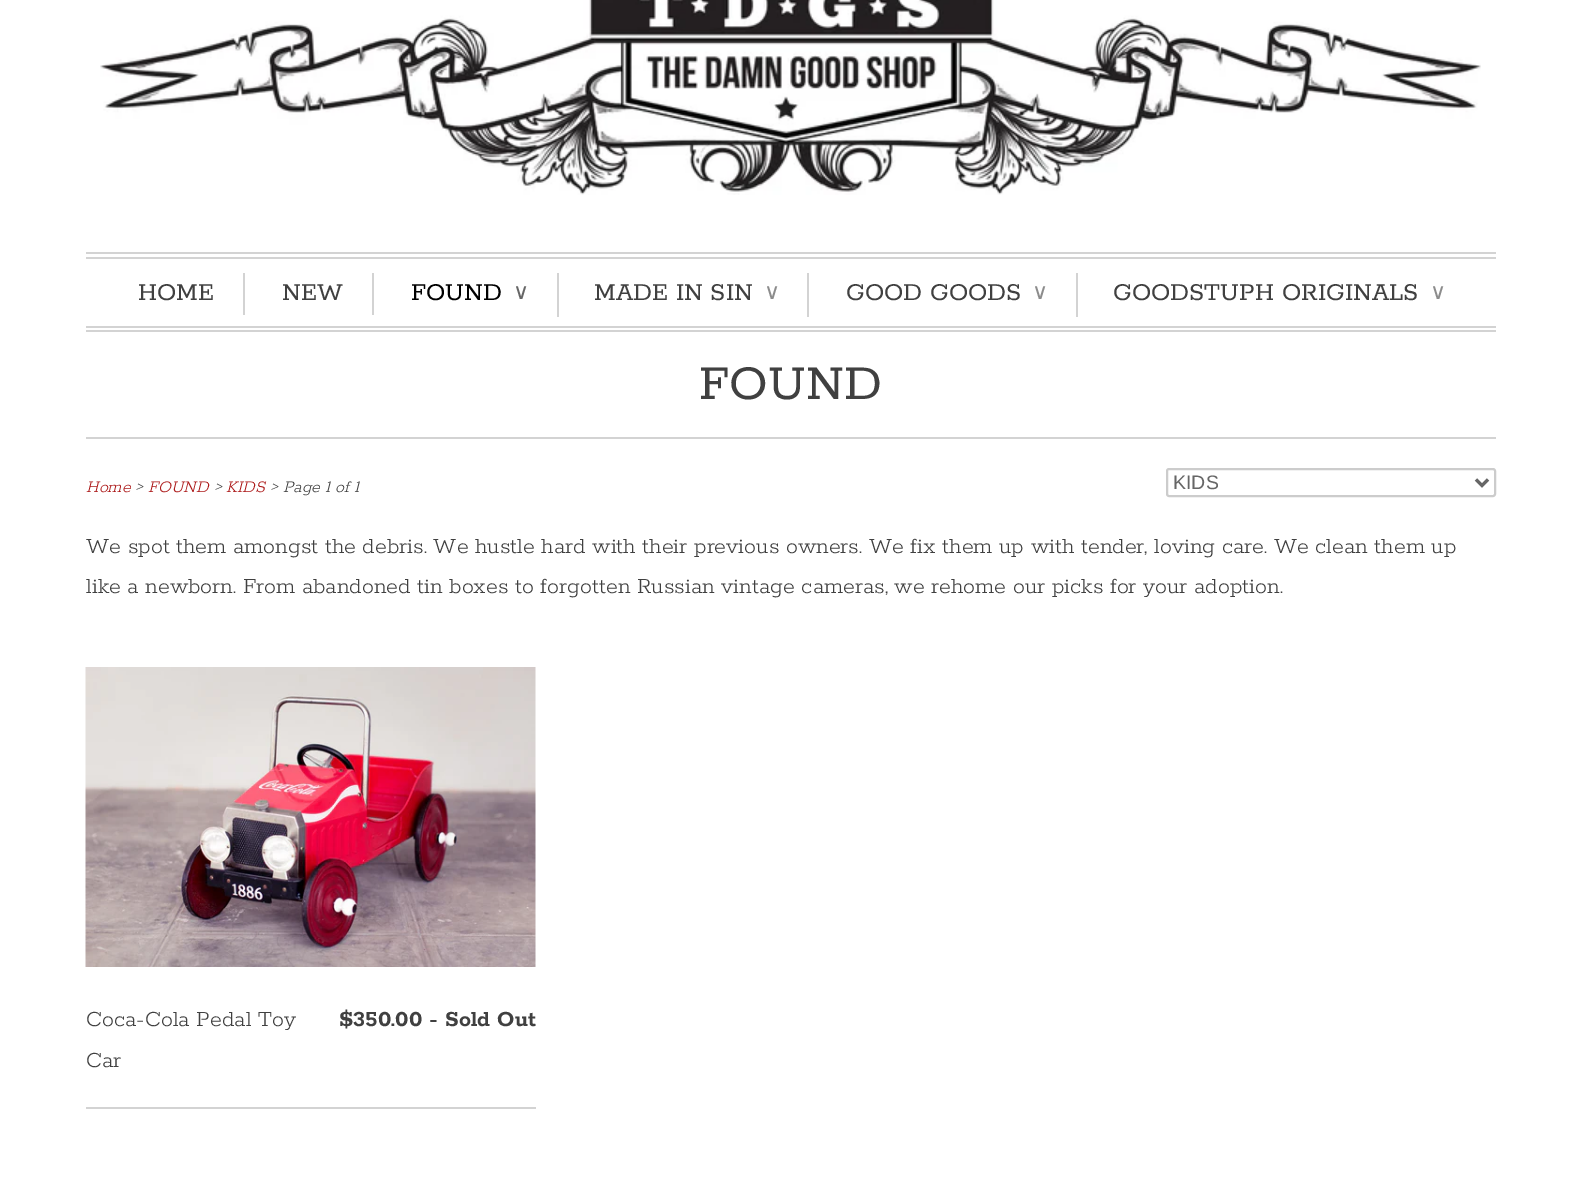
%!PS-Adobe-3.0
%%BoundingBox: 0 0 1581 1184
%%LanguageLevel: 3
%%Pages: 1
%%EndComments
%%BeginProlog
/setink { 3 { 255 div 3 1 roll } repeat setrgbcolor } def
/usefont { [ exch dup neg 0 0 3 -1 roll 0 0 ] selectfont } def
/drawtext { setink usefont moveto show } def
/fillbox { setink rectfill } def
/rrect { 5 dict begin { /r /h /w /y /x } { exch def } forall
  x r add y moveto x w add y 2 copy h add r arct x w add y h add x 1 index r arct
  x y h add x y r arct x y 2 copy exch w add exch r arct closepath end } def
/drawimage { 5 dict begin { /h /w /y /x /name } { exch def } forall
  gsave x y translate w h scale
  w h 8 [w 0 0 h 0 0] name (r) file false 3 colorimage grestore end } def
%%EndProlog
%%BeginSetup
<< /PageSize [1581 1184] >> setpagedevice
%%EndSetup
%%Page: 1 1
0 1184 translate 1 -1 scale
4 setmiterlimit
0 0 1581 1184 255 255 255 fillbox
(assets/img1.rgb) 100 0 1381 195 drawimage
86 252 1410 2 211 211 211 fillbox
86 257 1410 2 211 211 211 fillbox
86 326 1410 2 211 211 211 fillbox
86 330 1410 2 211 211 211 fillbox
243 273 2 42 211 211 211 fillbox
(HOME) 138 300 /Rokkitt-Regular 27 64 64 64 drawtext
372 273 2 42 211 211 211 fillbox
(NEW) 282 300 /Rokkitt-Regular 27 64 64 64 drawtext
557 273 2 44 211 211 211 fillbox
(FOUND) 411 300 /Rokkitt-Regular 27 0 0 0 drawtext
(∨) 513 299 /DejaVuSans-Regular 22 102 102 102 drawtext
807 273 2 44 211 211 211 fillbox
(MADE IN SIN) 594 300 /Rokkitt-Regular 27 64 64 64 drawtext
(∨) 764 299 /DejaVuSans-Regular 22 140 140 140 drawtext
1076 273 2 44 211 211 211 fillbox
(GOOD GOODS) 846 300 /Rokkitt-Regular 27 64 64 64 drawtext
(∨) 1032 299 /DejaVuSans-Regular 22 140 140 140 drawtext
(GOODSTUPH ORIGINALS) 1113 300 /Rokkitt-Regular 27 64 64 64 drawtext
(∨) 1430 299 /DejaVuSans-Regular 22 140 140 140 drawtext
86 437 1410 2 211 211 211 fillbox
(FOUND) 699 399 /Rokkitt-Regular 54 64 64 64 drawtext
(Home) 86 492 /Rokkitt-LightItalic 18 173 26 26 drawtext
(>) 135 492 /Rokkitt-LightItalic 18 64 64 64 drawtext
(FOUND) 148 492 /Rokkitt-LightItalic 18 173 26 26 drawtext
(>) 214 492 /Rokkitt-LightItalic 18 64 64 64 drawtext
(KIDS) 226 492 /Rokkitt-LightItalic 18 173 26 26 drawtext
(> Page 1 of 1) 270 492 /Rokkitt-LightItalic 18 64 64 64 drawtext
204 204 204 setink
2 setlinewidth
1167 469 328 27 2 rrect stroke
102 102 102 setink
3 setlinewidth
1476 479.5 moveto 1482 485.5 lineto 1488 479.5 lineto stroke
(KIDS) 1173 489 /LiberationSans-Regular 19.5 102 102 102 drawtext
(We spot them amongst the debris. We hustle hard with their previous owners. We fix them up with tender, loving care. We clean them up) 86 553 /Rokkitt-Light 24 64 64 64 drawtext
(like a newborn. From abandoned tin boxes to forgotten Russian vintage cameras, we rehome our picks for your adoption.) 86 593 /Rokkitt-Light 24 64 64 64 drawtext
86 1107 450 2 211 211 211 fillbox
(assets/img2.rgb) 85 667 451 300 drawimage
(Coca-Cola Pedal Toy) 86 1026 /Rokkitt-Light 24 64 64 64 drawtext
($350.00 - Sold Out) 339 1026 /Rokkitt-Bold 24 64 64 64 drawtext
(Car) 86 1067 /Rokkitt-Light 24 64 64 64 drawtext
showpage
%%EOF
